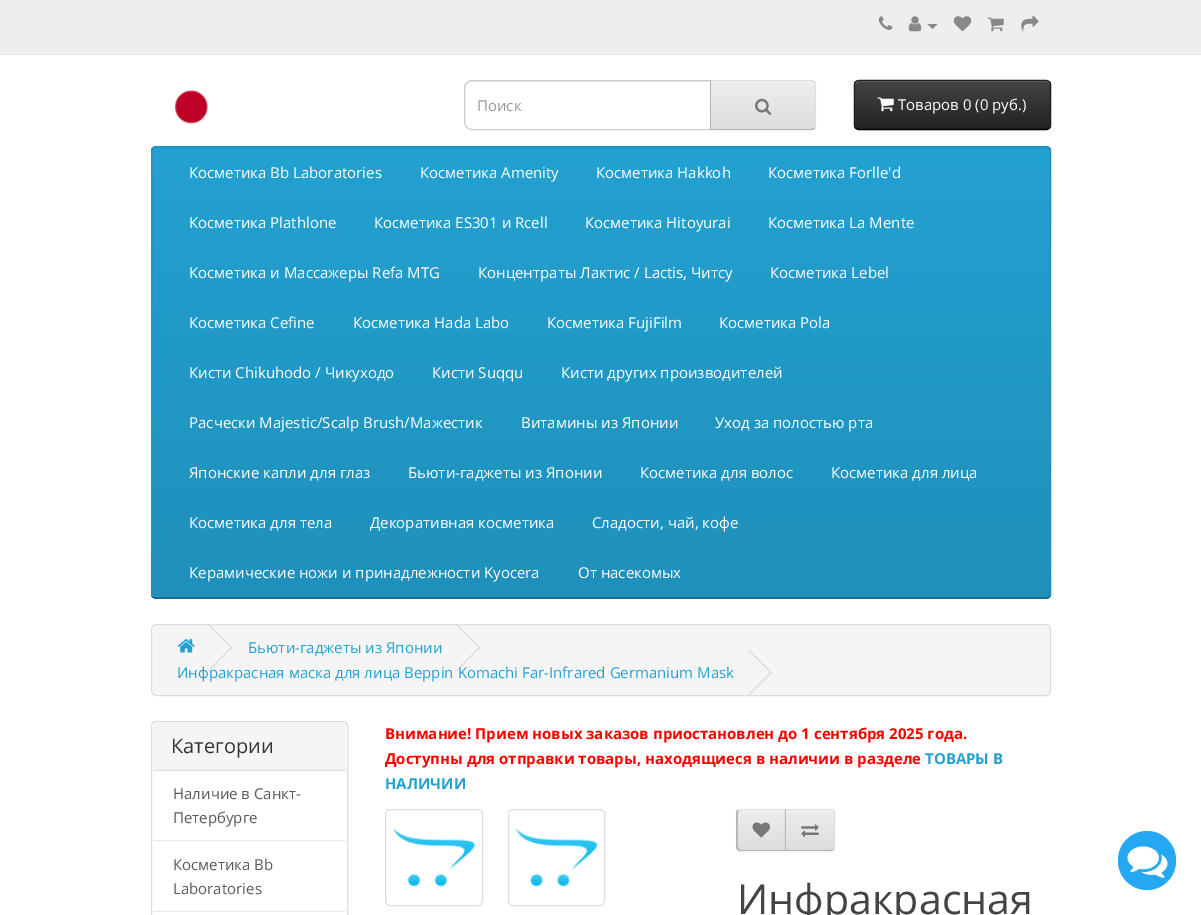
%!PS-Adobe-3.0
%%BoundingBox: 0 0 1201 915
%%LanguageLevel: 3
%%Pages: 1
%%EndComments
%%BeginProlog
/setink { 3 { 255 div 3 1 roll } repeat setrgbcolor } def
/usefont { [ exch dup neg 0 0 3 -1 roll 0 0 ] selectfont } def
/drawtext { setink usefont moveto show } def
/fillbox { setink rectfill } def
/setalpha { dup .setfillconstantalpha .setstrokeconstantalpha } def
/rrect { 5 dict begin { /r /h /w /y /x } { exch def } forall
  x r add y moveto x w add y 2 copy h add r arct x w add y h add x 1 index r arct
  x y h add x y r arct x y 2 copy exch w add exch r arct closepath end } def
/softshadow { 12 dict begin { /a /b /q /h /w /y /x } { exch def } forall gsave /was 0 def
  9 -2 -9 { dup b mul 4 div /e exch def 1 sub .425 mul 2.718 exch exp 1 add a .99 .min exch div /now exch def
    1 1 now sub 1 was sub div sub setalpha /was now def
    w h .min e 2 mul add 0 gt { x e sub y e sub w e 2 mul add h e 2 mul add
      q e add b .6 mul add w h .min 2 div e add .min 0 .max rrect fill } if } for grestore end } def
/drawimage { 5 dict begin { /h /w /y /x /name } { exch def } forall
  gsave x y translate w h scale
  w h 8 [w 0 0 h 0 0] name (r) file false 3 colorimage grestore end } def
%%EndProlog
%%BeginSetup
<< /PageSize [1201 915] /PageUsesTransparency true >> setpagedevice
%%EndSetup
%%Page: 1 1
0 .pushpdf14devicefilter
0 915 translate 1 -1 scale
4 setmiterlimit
0 0 1201 915 255 255 255 fillbox
0 0 1201 54 238 238 238 fillbox
0 54 1201 1 226 226 226 fillbox
(assets/img1.rgb) 878 16 15 14 drawimage
(assets/img2.rgb) 908 16 14 16 drawimage
136 136 136 setink
927.5 24 moveto 937.5 24 lineto 932.5 29 lineto closepath fill
(assets/img3.rgb) 953 16 19 16 drawimage
(assets/img4.rgb) 987 17 17 15 drawimage
(assets/img5.rgb) 1021 15 18 17 drawimage
(assets/img6.rgb) 174 89 34 35 drawimage
236 236 236 setink
471 82 moveto 710 82 lineto 710 81 lineto 471 81 lineto 468 81 465 84 465 87 curveto 465 89 lineto 465 85 468 82 471 82 curveto closepath fill
204 204 204 setink
472 80.5 moveto 710.5 80.5 lineto 710.5 129.5 lineto 472 129.5 lineto 468 129.5 464.5 126 464.5 122 curveto 464.5 88 lineto 464.5 84 468 80.5 472 80.5 curveto closepath stroke
(Поиск) 477 111 /OpenSans-Regular 15 153 153 153 drawtext
0 0 0 setink
710 81 106 50 5 1 0.05 softshadow
gsave
710 80 moveto 811 80 lineto 814 80 816 82 816 85 curveto 816 125 lineto 816 128 814 130 811 130 curveto 710 130 lineto closepath clip newpath
gsave 711 81 moveto 816 81 lineto 816 129 lineto 711 129 lineto closepath clip newpath
<< /ShadingType 2 /ColorSpace /DeviceRGB /Coords [763 81 763 129] /Extend [true true] /Function << /FunctionType 2 /Domain [0 1] /C0 [0.933 0.933 0.933] /C1 [0.867 0.867 0.867] /N 1 >> >> shfill grestore
grestore
241 241 241 setink
711 82 moveto 811 82 lineto 813 82 815 84 815 86 curveto 815 85 lineto 815 83 813 81 811 81 curveto 711 81 lineto closepath fill
221 221 221 setink
710 80 moveto 711 81 lineto 811 81 lineto 814 82 lineto 815 82 lineto 814 81 813 80 811 80 curveto closepath fill
815 82 moveto 816 82 816 84 816 85 curveto 816 125 lineto 816 126 816 128 815 128 curveto 814 128 lineto 815 127 815 126 815 125 curveto 815 85 lineto 815 84 815 83 814 82 curveto closepath fill
179 179 179 setink
811 130 moveto 813 130 814 129 815 128 curveto 814 128 lineto 811 129 lineto 711 129 lineto 710 130 lineto closepath fill
183 183 183 setink
710 80 moveto 710 130 lineto 711 129 lineto 711 81 lineto closepath fill
(assets/img7.rgb) 755 98 17 17 drawimage
0 0 0 setink
854 81 197 50 5 1 0.05 softshadow
gsave
854 80 197 50 5 rrect clip newpath
gsave 854 81 moveto 1051 81 lineto 1051 129 lineto 854 129 lineto closepath clip newpath
<< /ShadingType 2 /ColorSpace /DeviceRGB /Coords [953 81 953 129] /Extend [true true] /Function << /FunctionType 2 /Domain [0 1] /C0 [0.267 0.267 0.267] /C1 [0.133 0.133 0.133] /N 1 >> >> shfill grestore
grestore
105 105 105 setink
859 82 moveto 1046 82 lineto 1048 82 1050 84 1050 86 curveto 1050 85 lineto 1050 83 1048 81 1046 81 curveto 859 81 lineto 857 81 855 83 855 85 curveto 855 86 lineto 855 84 857 82 859 82 curveto closepath fill
0 0 0 setink
1.2 setlinewidth
1049.5 128 moveto 1048.5 129 1047.5 129.5 1046 129.5 curveto 859 129.5 lineto 857.5 129.5 856.5 129 855.5 128 curveto stroke
34 34 34 setink
855.5 128 moveto 855 127.5 854.5 126 854.5 125 curveto 854.5 85 lineto 854.5 84 855 82.5 855.5 82 curveto 856.5 81 857.5 80.5 859 80.5 curveto 1046 80.5 lineto 1047.5 80.5 1048.5 81 1049.5 82 curveto 1050 82.5 1050.5 84 1050.5 85 curveto 1050.5 125 lineto 1050.5 126 1050 127.5 1049.5 128 curveto stroke
(assets/img8.rgb) 877 97 17 15 drawimage
(Товаров 0 \(0 руб.\)) 898 110 /OpenSans-Regular 15 255 255 255 drawtext
34 154 200 setink
151 146 900 453 5 rrect fill
gsave
151 146 900 453 5 rrect clip newpath
gsave 151 148 moveto 1051 148 lineto 1051 598 lineto 151 598 lineto closepath clip newpath
<< /ShadingType 2 /ColorSpace /DeviceRGB /Coords [601 147 601 598] /Extend [true true] /Function << /FunctionType 2 /Domain [0 1] /C0 [0.137 0.631 0.82] /C1 [0.122 0.565 0.733] /N 1 >> >> shfill grestore
grestore
20 94 122 setink
1049.5 597 moveto 1048.5 597.5 1047.5 598 1046 598 curveto 156 598 lineto 155 598 154 597.5 153 597 curveto stroke
31 144 187 setink
153 597 moveto 152.5 596 152 595 152 594 curveto 152 151 lineto 152 150 152.5 149 153 148 curveto 154 147.5 155 147 156 147 curveto 1046 147 lineto 1047.5 147 1048.5 147.5 1049.5 148 curveto 1050 149 1050.5 150 1050.5 151 curveto 1050.5 594 lineto 1050.5 595 1050 596 1049.5 597 curveto stroke
(Косметика Bb Laboratories) 189 178 /OpenSans-Regular 15 255 255 255 drawtext
(Косметика Amenity) 420 178 /OpenSans-Regular 15 255 255 255 drawtext
(Косметика Hakkoh) 596 178 /OpenSans-Regular 15 255 255 255 drawtext
(Косметика Forlle'd) 768 178 /OpenSans-Regular 15 255 255 255 drawtext
(Косметика Plathlone) 189 228 /OpenSans-Regular 15 255 255 255 drawtext
(Косметика ES301 и Rcell) 374 228 /OpenSans-Regular 15 255 255 255 drawtext
(Косметика Hitoyurai) 585 228 /OpenSans-Regular 15 255 255 255 drawtext
(Косметика La Mente) 768 228 /OpenSans-Regular 15 255 255 255 drawtext
(Косметика и Массажеры Refa MTG) 189 278 /OpenSans-Regular 15 255 255 255 drawtext
(Концентраты Лактис / Lactis, Читсу) 478 278 /OpenSans-Regular 15 255 255 255 drawtext
(Косметика Lebel) 770 278 /OpenSans-Regular 15 255 255 255 drawtext
(Косметика Cefine) 189 328 /OpenSans-Regular 15 255 255 255 drawtext
(Косметика Hada Labo) 353 328 /OpenSans-Regular 15 255 255 255 drawtext
(Косметика FujiFilm) 547 328 /OpenSans-Regular 15 255 255 255 drawtext
(Косметика Pola) 719 328 /OpenSans-Regular 15 255 255 255 drawtext
(Кисти Chikuhodo / Чикуходо) 189 378 /OpenSans-Regular 15 255 255 255 drawtext
(Кисти Suqqu) 432 378 /OpenSans-Regular 15 255 255 255 drawtext
(Кисти других производителей) 561 378 /OpenSans-Regular 15 255 255 255 drawtext
(Расчески Majestic/Scalp Brush/Мажестик) 189 428 /OpenSans-Regular 15 255 255 255 drawtext
(Витамины из Японии) 521 428 /OpenSans-Regular 15 255 255 255 drawtext
(Уход за полостью рта) 715 428 /OpenSans-Regular 15 255 255 255 drawtext
(Японские капли для глаз) 189 478 /OpenSans-Regular 15 255 255 255 drawtext
(Бьюти-гаджеты из Японии) 408 478 /OpenSans-Regular 15 255 255 255 drawtext
(Косметика для волос) 640 478 /OpenSans-Regular 15 255 255 255 drawtext
(Косметика для лица) 831 478 /OpenSans-Regular 15 255 255 255 drawtext
(Косметика для тела) 189 528 /OpenSans-Regular 15 255 255 255 drawtext
(Декоративная косметика) 370 528 /OpenSans-Regular 15 255 255 255 drawtext
(Сладости, чай, кофе) 592 528 /OpenSans-Regular 15 255 255 255 drawtext
(Керамические ножи и принадлежности Kyocera) 189 578 /OpenSans-Regular 15 255 255 255 drawtext
(От насекомых) 578 578 /OpenSans-Regular 15 255 255 255 drawtext
245 245 245 setink
151.5 624.5 899 71 4.5 rrect gsave fill grestore
221 221 221 setink
1 setlinewidth
stroke
(assets/img9.rgb) 177 639 18 14 drawimage
208.5 625.5 moveto 209.5 624.5 lineto 232.5 647.5 lineto 231.5 648.5 lineto closepath fill
208.5 669.5 moveto 231.5 646.5 lineto 232.5 647.5 lineto 209.5 670.5 lineto closepath fill
(Бьюти-гаджеты из Японии) 248 653 /OpenSans-Regular 15 35 161 209 drawtext
221 221 221 setink
456.5 625.5 moveto 457.5 624.5 lineto 480.5 647.5 lineto 479.5 648.5 lineto closepath fill
456.5 669.5 moveto 479.5 646.5 lineto 480.5 647.5 lineto 457.5 670.5 lineto closepath fill
(Инфракрасная маска для лица Beppin Komachi Far-Infrared Germanium Mask) 177 678 /OpenSans-Regular 15 35 161 209 drawtext
221 221 221 setink
748 650.5 moveto 749 649.5 lineto 772 672.5 lineto 771 673.5 lineto closepath fill
748 694.5 moveto 771 671.5 lineto 772 672.5 lineto 749 695.5 lineto closepath fill
151.5 721.5 196 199 4.5 rrect stroke
245 245 245 setink
157 723 moveto 342 723 lineto 344 723 346 725 346 727 curveto 346 771 lineto 153 771 lineto 153 727 lineto 153 725 155 723 157 723 curveto closepath fill
153 770 193 1 221 221 221 fillbox
(Категории) 171 753 /OpenSans-Regular 20 51 51 51 drawtext
(Наличие в Санкт-) 173 799 /OpenSans-Regular 15 89 89 89 drawtext
(Петербурге) 173 823 /OpenSans-Regular 15 89 89 89 drawtext
153 840 193 1 233 233 233 fillbox
(Косметика Bb) 173 870 /OpenSans-Regular 15 89 89 89 drawtext
(Laboratories) 173 894 /OpenSans-Regular 15 89 89 89 drawtext
153 911 193 1 233 233 233 fillbox
(Внимание! Прием новых заказов приостановлен до 1 сентября 2025 года.) 385 739 /OpenSans-Bold 15 255 0 0 drawtext
(Доступны для отправки товары, находящиеся в наличии в разделе) 385 764 /OpenSans-Bold 15 255 0 0 drawtext
(ТОВАРЫ В) 925 764 /OpenSans-Bold 15 35 161 209 drawtext
(НАЛИЧИИ) 385 789 /OpenSans-Bold 15 35 161 209 drawtext
221 221 221 setink
385.5 809.5 97 96 4.5 rrect stroke
(assets/img10.rgb) 392 827 83 60 drawimage
508.5 809.5 96 96 4.5 rrect stroke
(assets/img11.rgb) 515 827 83 60 drawimage
0 0 0 setink
736 810 50 43 5 1 0.05 softshadow
231 231 231 setink
741 809 moveto 786 809 lineto 786 851 lineto 741 851 lineto 738 851 736 849 736 846 curveto 736 814 lineto 736 811 738 809 741 809 curveto closepath fill
gsave
741 809 moveto 786 809 lineto 786 851 lineto 741 851 lineto 738 851 736 849 736 846 curveto 736 814 lineto 736 811 738 809 741 809 curveto closepath clip newpath
gsave 736 810 moveto 785 810 lineto 785 850 lineto 736 850 lineto closepath clip newpath
<< /ShadingType 2 /ColorSpace /DeviceRGB /Coords [761 810 761 850] /Extend [true true] /Function << /FunctionType 2 /Domain [0 1] /C0 [0.933 0.933 0.933] /C1 [0.867 0.867 0.867] /N 1 >> >> shfill grestore
grestore
241 241 241 setink
741 811 moveto 785 811 lineto 785 810 lineto 742 810 lineto 740 810 738 812 738 814 curveto 738 815 lineto 738 813 739 811 741 811 curveto closepath fill
221 221 221 setink
741 809 moveto 738 810 lineto 739 811 lineto 740 810 lineto 785 810 lineto 786 809 lineto closepath fill
179 179 179 setink
786 851 moveto 785 850 lineto 740 850 lineto 739 849 lineto 738 850 lineto 738 851 740 851 741 851 curveto closepath fill
183 183 183 setink
736 812.5 moveto 737.5 810 lineto 739 811 lineto 738 812 738 813 738 814 curveto 738 846 lineto 738 847 738 848 739 849 curveto 737.5 850 lineto 736 847.5 lineto closepath fill
(assets/img12.rgb) 752 822 18 16 drawimage
0 0 0 setink
785 810 50 43 5 1 0.05 softshadow
gsave
785 809 moveto 830 809 lineto 833 809 835 811 835 814 curveto 835 846 lineto 835 849 833 851 830 851 curveto 785 851 lineto closepath clip newpath
gsave 786 810 moveto 835 810 lineto 835 850 lineto 786 850 lineto closepath clip newpath
<< /ShadingType 2 /ColorSpace /DeviceRGB /Coords [810 810 810 850] /Extend [true true] /Function << /FunctionType 2 /Domain [0 1] /C0 [0.933 0.933 0.933] /C1 [0.867 0.867 0.867] /N 1 >> >> shfill grestore
grestore
241 241 241 setink
786 811 moveto 830 811 lineto 832 811 834 813 834 815 curveto 834 814 lineto 834 812 832 810 830 810 curveto 786 810 lineto closepath fill
221 221 221 setink
833 810 moveto 833 809 831 809 830 809 curveto 785 809 lineto 786 810 lineto 830 810 lineto 831 810 832 810 833 811 curveto closepath fill
833.5 810.5 moveto 834.5 811 835 812.5 835 814 curveto 835 846 lineto 835 847.5 834.5 849 833.5 849.5 curveto 832.5 849 lineto 833.5 848 834 847 834 846 curveto 834 814 lineto 834 813 833.5 812 832.5 811 curveto closepath fill
179 179 179 setink
833 850 moveto 833 851 831 851 830 851 curveto 785 851 lineto 786 850 lineto 830 850 lineto 831 850 832 850 833 849 curveto closepath fill
183 183 183 setink
786 810 moveto 786 850 lineto 785 851 lineto 785 809 lineto closepath fill
(assets/img13.rgb) 801 824 18 14 drawimage
(Инфракрасная) 737 914 /OpenSans-Regular 41.25 68 68 68 drawtext
37 167 242 setink
1118 831 58 59 29 rrect fill
(assets/img14.rgb) 1127 846 41 32 drawimage
.poppdf14devicefilter showpage
%%EOF
